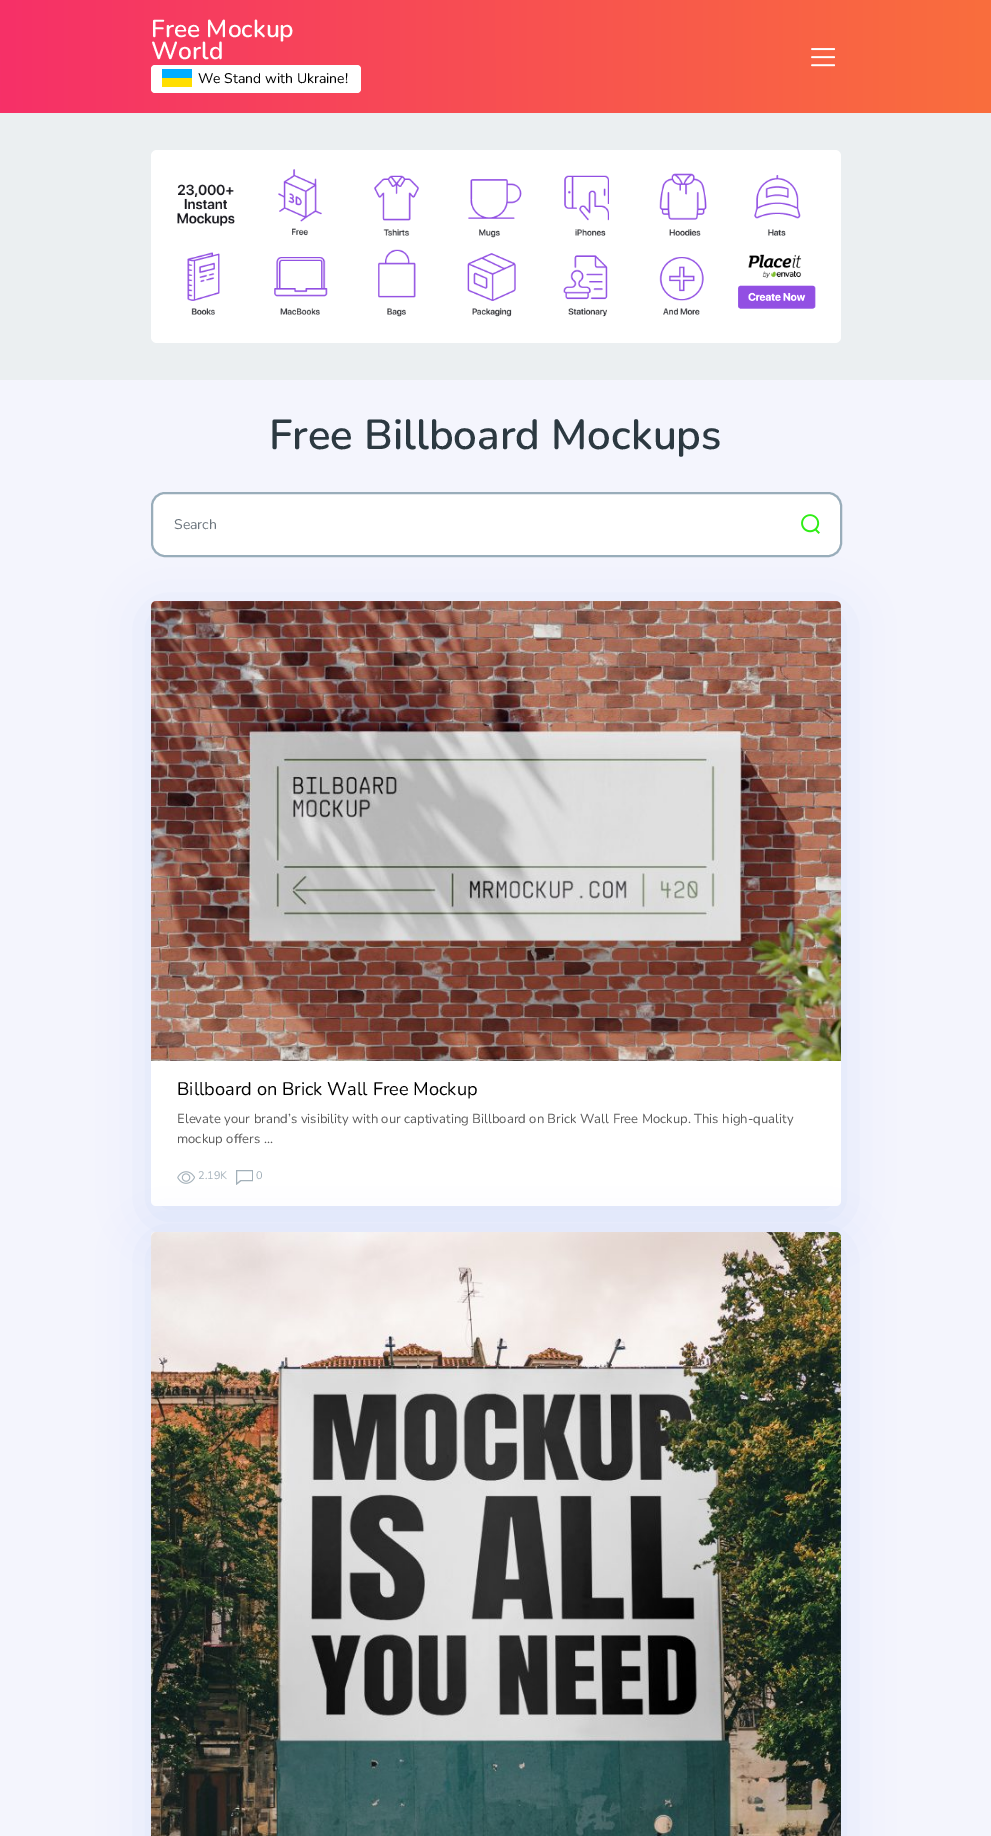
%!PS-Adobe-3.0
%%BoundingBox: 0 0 991 1836
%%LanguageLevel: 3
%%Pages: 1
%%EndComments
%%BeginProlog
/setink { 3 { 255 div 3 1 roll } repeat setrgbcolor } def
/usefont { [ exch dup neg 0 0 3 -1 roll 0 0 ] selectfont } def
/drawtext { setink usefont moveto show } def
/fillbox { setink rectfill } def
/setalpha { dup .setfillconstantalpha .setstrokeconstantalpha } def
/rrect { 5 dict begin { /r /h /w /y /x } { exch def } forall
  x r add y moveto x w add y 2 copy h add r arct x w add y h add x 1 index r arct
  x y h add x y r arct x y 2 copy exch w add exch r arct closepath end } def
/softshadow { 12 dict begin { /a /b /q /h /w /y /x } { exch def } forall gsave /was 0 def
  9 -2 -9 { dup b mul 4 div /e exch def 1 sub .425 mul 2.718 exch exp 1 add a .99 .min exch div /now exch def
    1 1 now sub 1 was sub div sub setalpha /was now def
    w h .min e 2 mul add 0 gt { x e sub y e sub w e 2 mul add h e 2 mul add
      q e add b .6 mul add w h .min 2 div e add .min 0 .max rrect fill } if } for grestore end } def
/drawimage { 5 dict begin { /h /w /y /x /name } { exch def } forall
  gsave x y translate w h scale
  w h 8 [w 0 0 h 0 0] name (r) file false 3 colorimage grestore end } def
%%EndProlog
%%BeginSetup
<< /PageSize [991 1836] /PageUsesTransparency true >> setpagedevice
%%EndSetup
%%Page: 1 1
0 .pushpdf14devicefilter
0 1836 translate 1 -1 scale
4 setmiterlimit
0 0 991 1836 244 245 253 fillbox
gsave 0 0 moveto 991 0 lineto 991 113 lineto 0 113 lineto closepath clip newpath
<< /ShadingType 2 /ColorSpace /DeviceRGB /Coords [0 57 991 56] /Extend [true true] /Function << /FunctionType 2 /Domain [0 1] /C0 [0.965 0.188 0.408] /C1 [0.98 0.431 0.239] /N 1 >> >> shfill grestore
(Free Mockup) 151 37 /Nunito-ExtraLight 24.5 255 255 255 drawtext
(World) 151 59 /Nunito-ExtraLight 24.5 255 255 255 drawtext
151 65 210 28 4 rrect fill
162 78 30 9 255 222 0 fillbox
162 69 30 9 0 174 255 fillbox
(We Stand with Ukraine!) 198 83 /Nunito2-ExtraLight 14 0 0 0 drawtext
(assets/img1.rgb) 811 48 24 19 drawimage
0 113 991 267 235 239 241 fillbox
255 255 255 setink
151 150 690 193 6 rrect fill
(assets/img2.rgb) 177 169 639 148 drawimage
(Free Billboard Mockups) 269 449 /Nunito-ExtraLight 42 44 57 65 drawtext
255 255 255 setink
152 493 689 63 13 rrect gsave fill grestore
153 173 186 setink
2 setlinewidth
stroke
(Search) 174 529 /Nunito2-ExtraLight 14 108 117 125 drawtext
(assets/img3.rgb) 801 514 19 20 drawimage
4 75 194 setink
151 611 690 605 5 25 0.1 softshadow
255 255 255 setink
151 601 690 605 5 rrect fill
(assets/img4.rgb) 151 601 690 460 drawimage
(Billboard on Brick Wall Free Mockup) 177 1095 /Nunito2-ExtraLight 18.25 0 0 0 drawtext
(Elevate your brand’s visibility with our captivating Billboard on Brick Wall Free Mockup. This high-quality) 177 1123 /Nunito2-ExtraLight 13.1 90 90 90 drawtext
(mockup offers …) 177 1143 /Nunito2-ExtraLight 13.1 90 90 90 drawtext
(assets/img5.rgb) 177 1171 18 13 drawimage
(2.19K) 198 1179 /Nunito2-ExtraLight 11 163 176 185 drawtext
gsave
236 1170 17 15 rectclip
1.1 setlinewidth
252.5 1170.5 moveto 236.5 1170.5 lineto 236.5 1184 lineto 241 1180.5 lineto 252.5 1180.5 lineto closepath stroke
grestore
(0) 256 1179 /Nunito2-ExtraLight 11 163 176 185 drawtext
4 75 194 setink
151 1242 690 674 5 25 0.1 softshadow
(assets/img6.rgb) 151 1232 690 604 drawimage
.poppdf14devicefilter showpage
%%EOF
